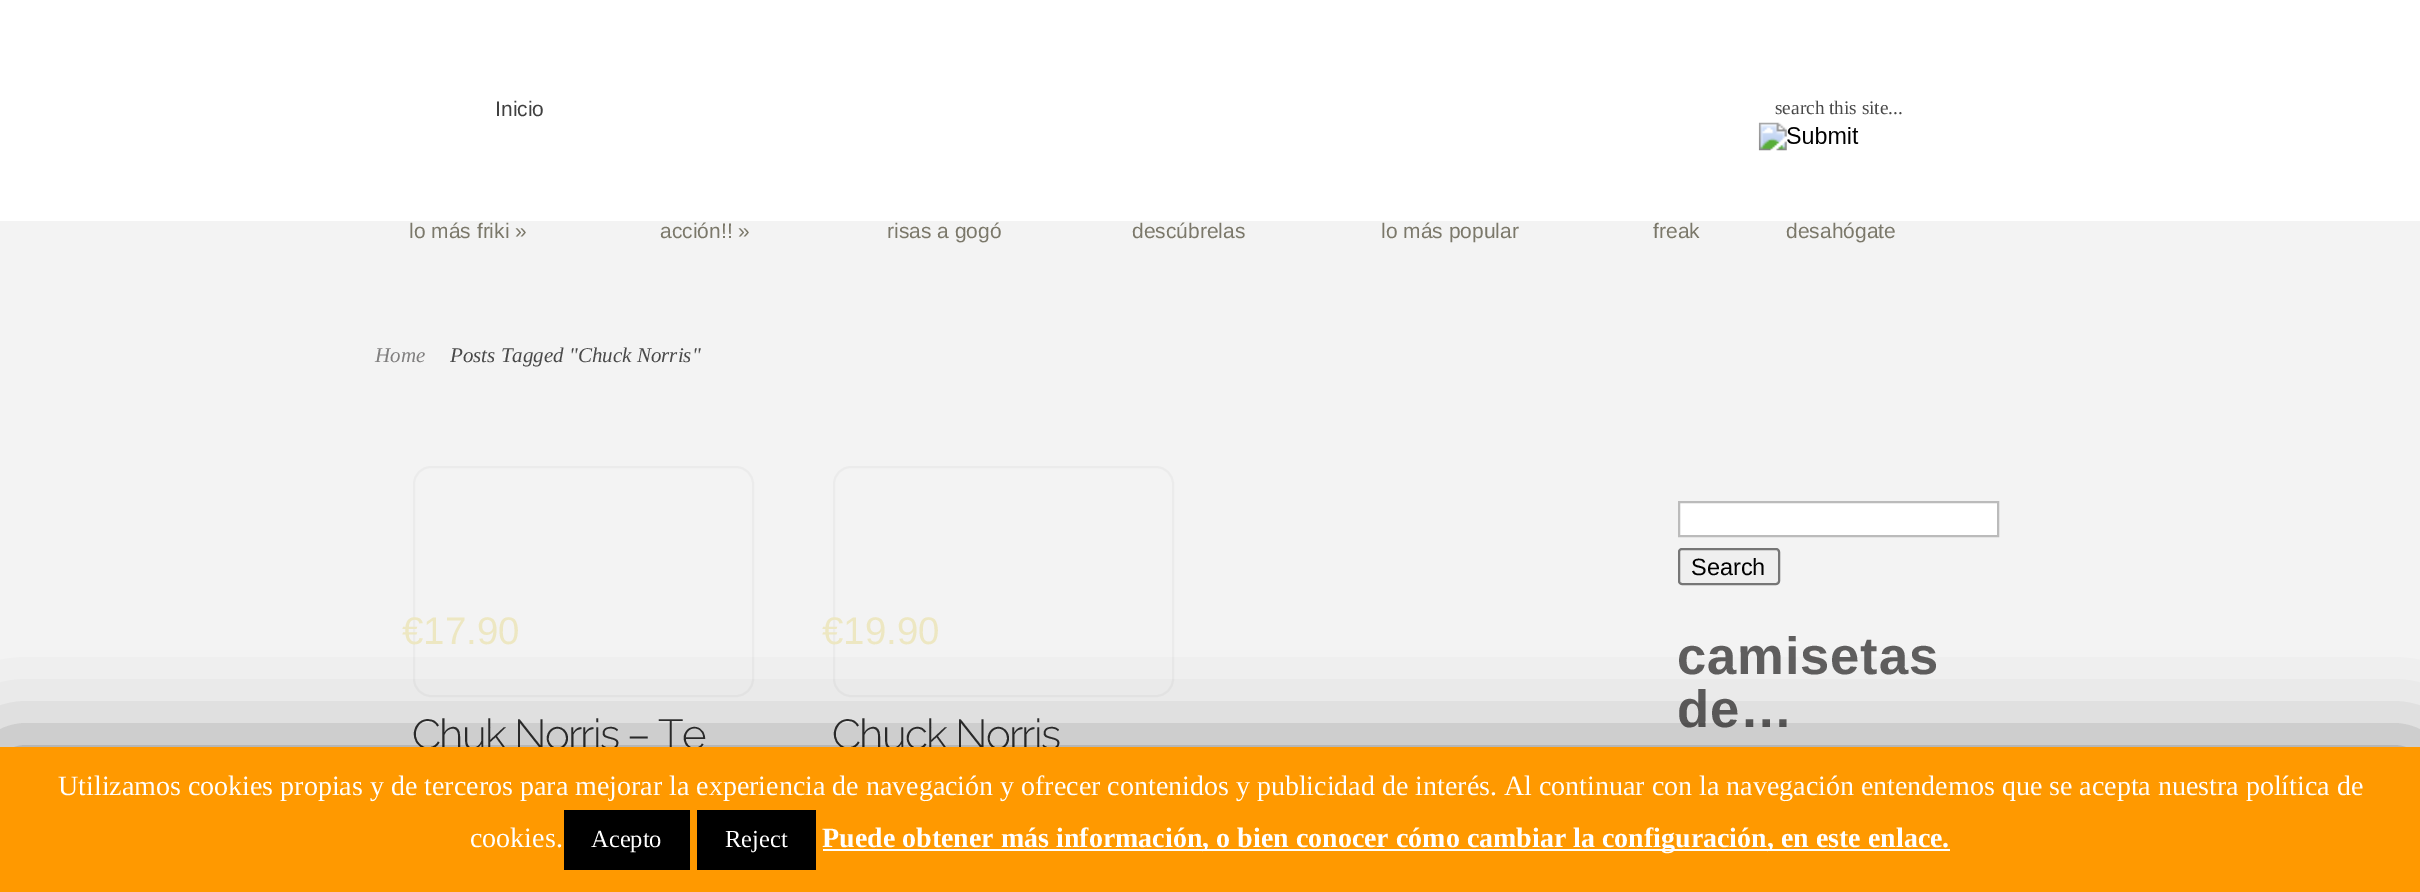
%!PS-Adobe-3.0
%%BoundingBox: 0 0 2420 892
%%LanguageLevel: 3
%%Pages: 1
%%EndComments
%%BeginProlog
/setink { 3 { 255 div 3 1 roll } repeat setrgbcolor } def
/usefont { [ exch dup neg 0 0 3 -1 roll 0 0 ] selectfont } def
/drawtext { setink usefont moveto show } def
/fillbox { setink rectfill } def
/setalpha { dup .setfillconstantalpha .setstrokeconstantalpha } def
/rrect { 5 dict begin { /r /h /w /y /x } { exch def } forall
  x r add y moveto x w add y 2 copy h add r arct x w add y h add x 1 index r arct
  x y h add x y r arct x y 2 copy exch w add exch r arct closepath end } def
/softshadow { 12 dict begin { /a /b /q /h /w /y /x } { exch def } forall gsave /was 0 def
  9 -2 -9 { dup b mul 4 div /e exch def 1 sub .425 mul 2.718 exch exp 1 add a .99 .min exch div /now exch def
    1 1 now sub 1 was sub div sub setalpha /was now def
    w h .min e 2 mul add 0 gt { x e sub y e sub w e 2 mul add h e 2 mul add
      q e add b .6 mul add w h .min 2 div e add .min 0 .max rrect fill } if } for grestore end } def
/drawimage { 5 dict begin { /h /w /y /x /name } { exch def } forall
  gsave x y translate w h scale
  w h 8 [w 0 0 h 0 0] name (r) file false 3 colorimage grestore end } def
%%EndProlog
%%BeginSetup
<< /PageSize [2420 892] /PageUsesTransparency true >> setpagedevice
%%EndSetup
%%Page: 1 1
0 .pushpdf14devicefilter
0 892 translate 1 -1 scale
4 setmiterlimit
0 0 2420 892 243 243 243 fillbox
0 0 2420 221 255 255 255 fillbox
(Inicio) 495 116 /LiberationSans-Regular 21 64 64 64 drawtext
(search this site...) 1775 114 /LiberationSerif-Regular 19.25 73 73 73 drawtext
(assets/img1.rgb) 1758 122 101 29 drawimage
(lo más friki ») 409 238 /LiberationSans-Regular 21 123 120 106 drawtext
(acción!! ») 660 238 /LiberationSans-Regular 21 123 120 106 drawtext
(risas a gogó) 887 238 /LiberationSans-Regular 21 123 120 106 drawtext
(descúbrelas) 1132 238 /LiberationSans-Regular 21 123 120 106 drawtext
(lo más popular) 1381 238 /LiberationSans-Regular 21 123 120 106 drawtext
(freak) 1653 238 /LiberationSans-Regular 21 123 120 106 drawtext
(desahógate) 1786 238 /LiberationSans-Regular 21 123 120 106 drawtext
(Home) 375 362 /LiberationSerif-Italic 21 128 127 127 drawtext
(Posts Tagged "Chuck Norris") 450 362 /LiberationSerif-Italic 21 73 73 73 drawtext
235 235 235 setink
2 setlinewidth
414 467 339 229 17 rrect stroke
(€17.90) 402 644 /LiberationSans-Regular 38.5 237 231 194 drawtext
/Raleway-Light 42 usefont
48 48 48 setink
412 749 moveto -1.75 0 (Chuk Norris – Te) ashow
235 235 235 setink
834 467 339 229 17 rrect stroke
(€19.90) 822 644 /LiberationSans-Regular 38.5 237 231 194 drawtext
/Raleway-Light 42 usefont
48 48 48 setink
832 749 moveto -1.75 0 (Chuck Norris) ashow
255 255 255 setink
1679 502 moveto 1998 502 lineto 1998 536 lineto 1679 536 lineto closepath gsave fill grestore
187 187 187 setink
stroke
239 239 239 setink
1679 549 100 35 3 rrect gsave fill grestore
118 118 118 setink
stroke
(Search) 1691 575 /LiberationSans-Regular 23.5 0 0 0 drawtext
/LiberationSans-Bold 52.5 usefont
95 94 94 setink
1677 674 moveto 0.9 0 (camisetas) ashow
1677 727 moveto 0.9 0 (de…) ashow
0 0 0 setink
0 756 2420 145 0 44 0.5 softshadow
0 747 2420 145 255 153 0 fillbox
(Utilizamos cookies propias y de terceros para mejorar la experiencia de navegación y ofrecer contenidos y publicidad de interés. Al continuar con la navegación entendemos que se acepta nuestra política de) 58 795 /LiberationSerif-Regular 28 255 255 255 drawtext
(cookies.) 470 847 /LiberationSerif-Regular 28 255 255 255 drawtext
564 810 126 60 0 0 0 fillbox
(Acepto) 591 847 /LiberationSerif-Regular 24.5 255 255 255 drawtext
697 810 119 60 0 0 0 fillbox
(Reject) 725 847 /LiberationSerif-Regular 24.5 255 255 255 drawtext
823 849 1127 2 255 255 255 fillbox
(Puede obtener más información, o bien conocer cómo cambiar la configuración, en este enlace.) 822 847 /LiberationSerif-Bold 28 255 255 255 drawtext
.poppdf14devicefilter showpage
%%EOF
